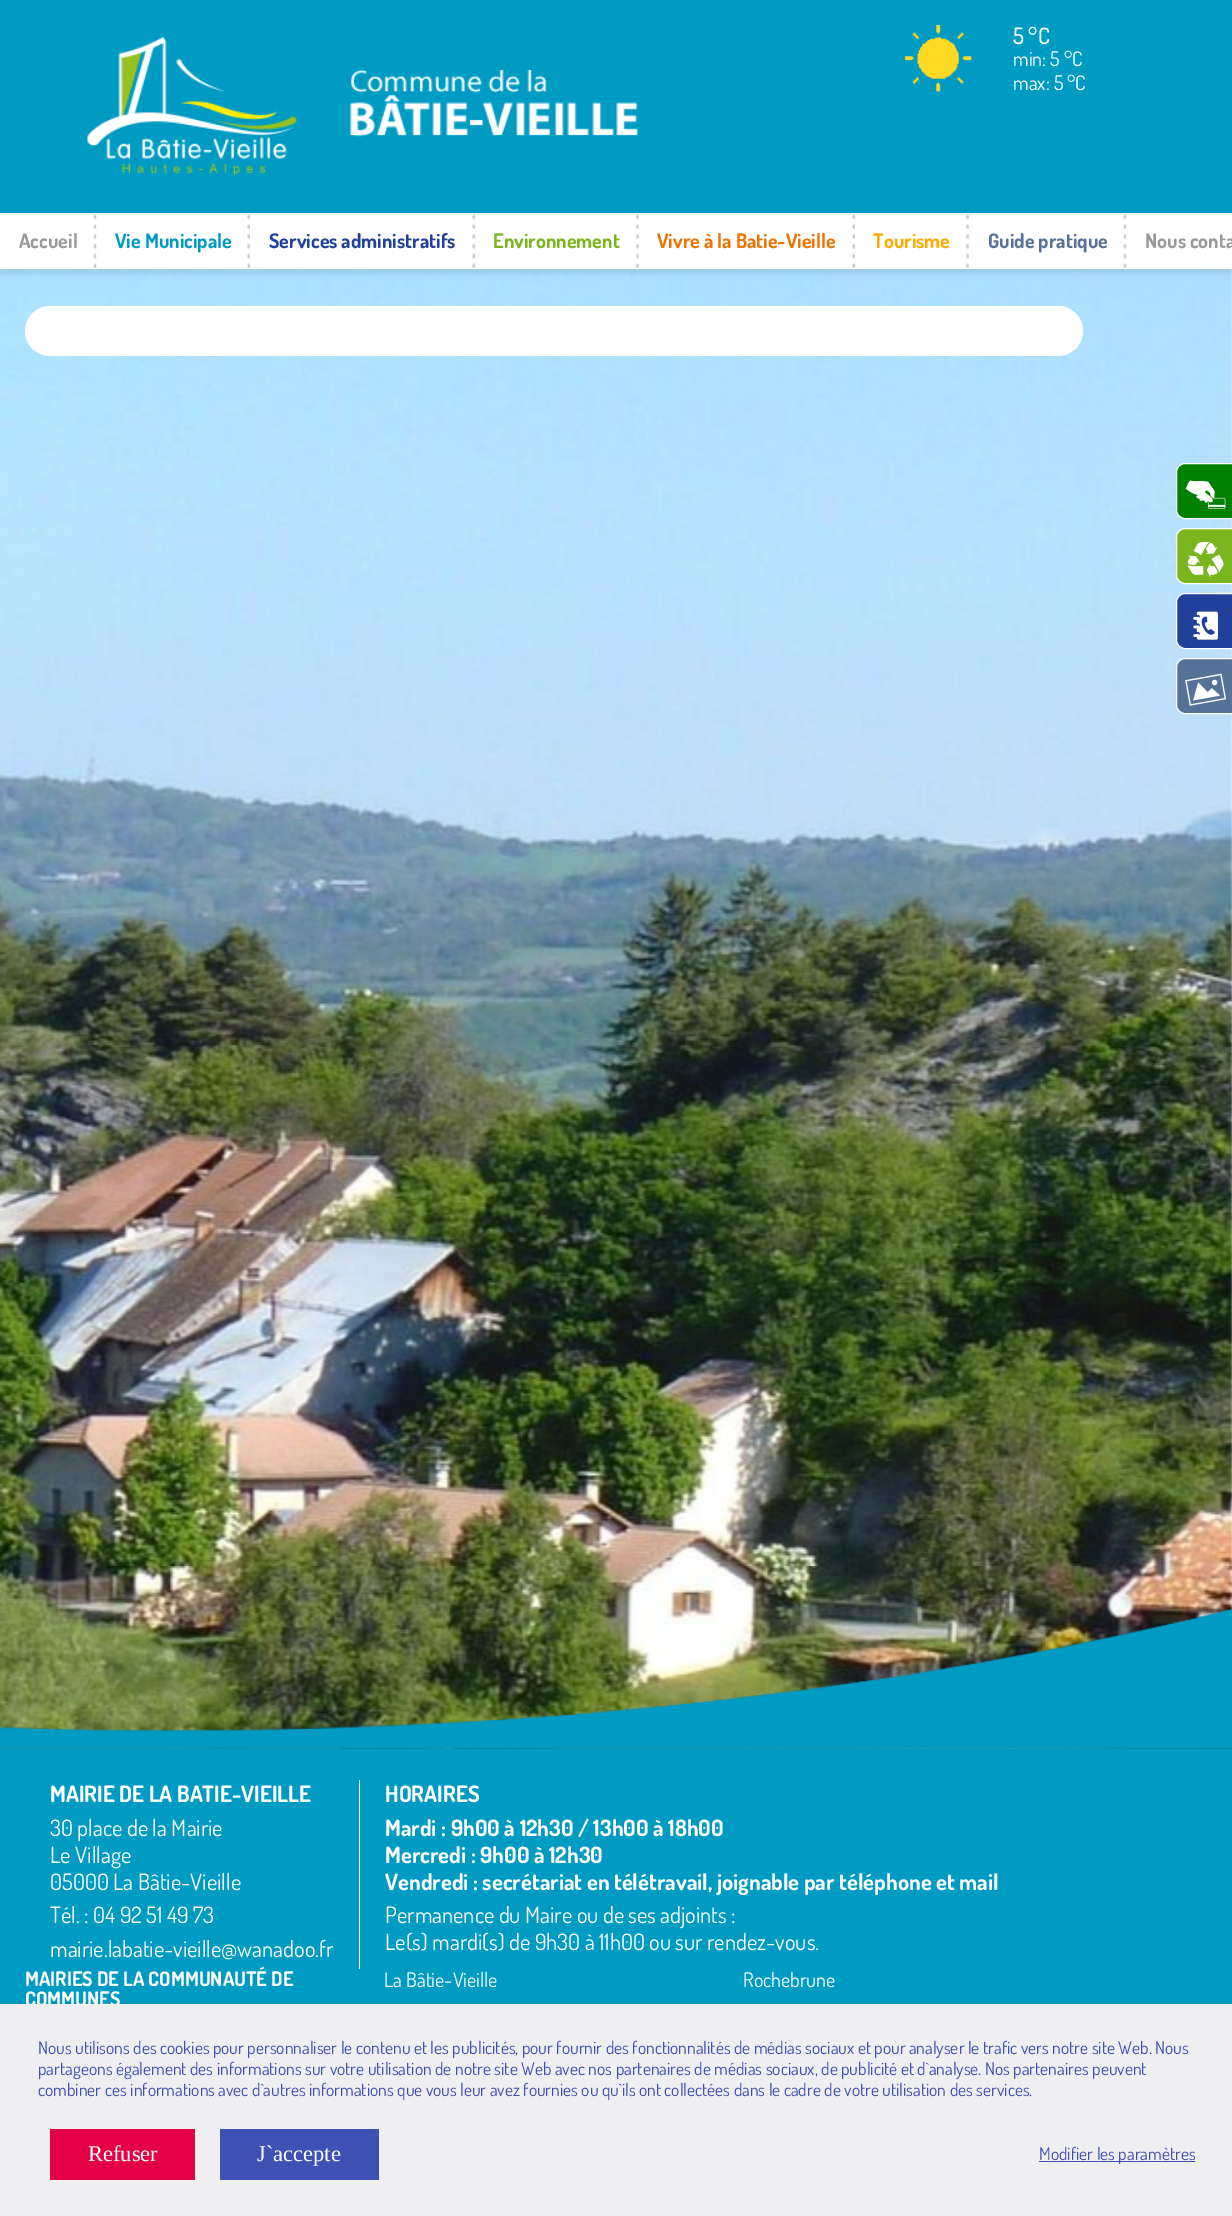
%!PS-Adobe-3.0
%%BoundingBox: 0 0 1232 2216
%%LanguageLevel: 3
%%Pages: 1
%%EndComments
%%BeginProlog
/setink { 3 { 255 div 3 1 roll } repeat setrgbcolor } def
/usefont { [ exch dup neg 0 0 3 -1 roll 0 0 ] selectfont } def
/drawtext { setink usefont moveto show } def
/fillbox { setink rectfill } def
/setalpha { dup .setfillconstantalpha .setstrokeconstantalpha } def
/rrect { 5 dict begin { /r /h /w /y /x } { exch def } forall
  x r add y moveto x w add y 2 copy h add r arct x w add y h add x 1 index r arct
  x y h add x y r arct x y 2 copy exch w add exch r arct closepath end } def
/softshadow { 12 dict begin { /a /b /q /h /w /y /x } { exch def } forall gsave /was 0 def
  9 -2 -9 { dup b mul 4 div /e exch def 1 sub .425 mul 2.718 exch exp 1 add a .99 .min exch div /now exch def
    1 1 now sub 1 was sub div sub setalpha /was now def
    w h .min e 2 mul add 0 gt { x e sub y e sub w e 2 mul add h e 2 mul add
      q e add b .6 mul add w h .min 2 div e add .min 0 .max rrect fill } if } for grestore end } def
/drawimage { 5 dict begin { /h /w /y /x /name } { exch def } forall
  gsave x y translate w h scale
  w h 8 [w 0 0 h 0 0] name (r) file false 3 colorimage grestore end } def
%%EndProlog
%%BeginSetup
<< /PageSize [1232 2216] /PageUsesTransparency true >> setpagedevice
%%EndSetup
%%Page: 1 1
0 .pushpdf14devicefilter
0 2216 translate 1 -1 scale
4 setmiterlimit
0 0 1232 2216 255 255 255 fillbox
0 0 1232 213 0 155 194 fillbox
(assets/img1.rgb) 87 37 551 139 drawimage
(assets/img2.rgb) 904 25 68 67 drawimage
(5 °C) 1013 44 /Dosis-Medium 22.5 255 255 255 drawtext
(min: 5 °C) 1013 66 /Dosis-Regular 20 255 255 255 drawtext
(max: 5 °C) 1013 90 /Dosis-Regular 20 255 255 255 drawtext
(assets/img7.rgb) 0 269 1232 1480 drawimage
0 0 0 setink
0 216 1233 57 0 3 0.1 softshadow
0 213 1232 56 255 255 255 fillbox
(assets/img3.rgb) 93 214 4 54 drawimage
(Accueil) 19 248 /Dosis-Bold 20 153 153 153 drawtext
(assets/img4.rgb) 246 213 4 55 drawimage
(Vie Municipale) 115 248 /Dosis-Bold 20 0 155 194 drawtext
(assets/img4.rgb) 471 213 4 55 drawimage
(Services administratifs) 269 248 /Dosis-Bold 20 33 64 153 drawtext
(assets/img5.rgb) 635 214 4 54 drawimage
(Environnement) 493 248 /Dosis-Bold 20 122 181 29 drawtext
(assets/img6.rgb) 851 214 4 54 drawimage
(Vivre à la Batie-Vieille) 657 248 /Dosis-Bold 20 235 116 4 drawtext
(assets/img5.rgb) 965 214 4 54 drawimage
(Tourisme) 873 248 /Dosis-Bold 20 255 170 0 drawtext
(assets/img3.rgb) 1123 214 4 54 drawimage
(Guide pratique) 988 248 /Dosis-Bold 20 87 114 153 drawtext
(Nous conta) 1145 248 /Dosis-Bold 20 153 153 153 drawtext
255 255 255 setink
25 306 1058 50 25 rrect fill
0 128 0 setink
1185 463.5 moveto 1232.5 463.5 lineto 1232.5 518.5 lineto 1185 518.5 lineto 1180.5 518.5 1176.5 514.5 1176.5 510 curveto 1176.5 472 lineto 1176.5 467.5 1180.5 463.5 1185 463.5 curveto closepath gsave fill grestore
255 255 255 setink
stroke
(assets/img8.rgb) 1185 480 41 29 drawimage
122 181 29 setink
1185 528.5 moveto 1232.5 528.5 lineto 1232.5 583.5 lineto 1185 583.5 lineto 1180.5 583.5 1176.5 579.5 1176.5 575 curveto 1176.5 537 lineto 1176.5 532.5 1180.5 528.5 1185 528.5 curveto closepath gsave fill grestore
255 255 255 setink
stroke
(assets/img9.rgb) 1187 542 37 36 drawimage
33 64 153 setink
1185 593.5 moveto 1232.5 593.5 lineto 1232.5 648.5 lineto 1185 648.5 lineto 1180.5 648.5 1176.5 644.5 1176.5 640 curveto 1176.5 602 lineto 1176.5 597.5 1180.5 593.5 1185 593.5 curveto closepath gsave fill grestore
255 255 255 setink
stroke
(assets/img10.rgb) 1193 611 25 29 drawimage
87 114 153 setink
1185 658.5 moveto 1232.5 658.5 lineto 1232.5 713.5 lineto 1185 713.5 lineto 1180.5 713.5 1176.5 709.5 1176.5 705 curveto 1176.5 667 lineto 1176.5 662.5 1180.5 658.5 1185 658.5 curveto closepath gsave fill grestore
255 255 255 setink
stroke
(assets/img11.rgb) 1185 673 41 33 drawimage
0 1749 1232 255 0 155 194 fillbox
(assets/img12.rgb) 0 1608 1232 141 drawimage
(MAIRIE DE LA BATIE-VIEILLE) 50 1802 /Dosis-Bold 22.5 255 255 255 drawtext
(30 place de la Mairie) 50 1836 /Dosis-Regular 22.5 255 255 255 drawtext
(Le Village) 50 1863 /Dosis-Regular 22.5 255 255 255 drawtext
(05000 La Bâtie-Vieille) 50 1890 /Dosis-Regular 22.5 255 255 255 drawtext
(Tél. : 04 92 51 49 73) 50 1923 /Dosis-Regular 22.5 255 255 255 drawtext
(mairie.labatie-vieille@wanadoo.fr) 50 1957 /Dosis-Regular 22.5 255 255 255 drawtext
359 1780 1 189 255 255 255 fillbox
(HORAIRES) 385 1802 /Dosis-Bold 22.5 255 255 255 drawtext
(Mardi : 9h00 à 12h30 / 13h00 à 18h00) 385 1836 /Dosis-Bold 22.5 255 255 255 drawtext
(Mercredi : 9h00 à 12h30) 385 1863 /Dosis-Bold 22.5 255 255 255 drawtext
(Vendredi : secrétariat en télétravail, joignable par téléphone et mail) 385 1890 /Dosis-Bold 22.5 255 255 255 drawtext
(Permanence du Maire ou de ses adjoints :) 385 1923 /Dosis-Regular 22.5 255 255 255 drawtext
(Le\(s\) mardi\(s\) de 9h30 à 11h00 ou sur rendez-vous.) 385 1950 /Dosis-Regular 22.5 255 255 255 drawtext
(MAIRIES DE LA COMMUNAUTÉ DE) 25 1986 /Dosis-Bold 20 255 255 255 drawtext
(COMMUNES) 25 2006 /Dosis-Bold 20 255 255 255 drawtext
(La Bâtie-Vieille) 384 1987 /Dosis-Regular 20 255 255 255 drawtext
(Rochebrune) 743 1987 /Dosis-Regular 20 255 255 255 drawtext
0 0 0 setink
1 2006 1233 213 0 3 0.2 softshadow
0 2004 1232 212 239 238 241 fillbox
(Nous utilisons des cookies pour personnaliser le contenu et les publicités, pour fournir des fonctionnalités de médias sociaux et pour analyser le trafic vers notre site Web. Nous) 38 2054 /Dosis-Regular 17.5 63 81 181 drawtext
(partageons également des informations sur votre utilisation de notre site Web avec nos partenaires de médias sociaux, de publicité et d`analyse. Nos partenaires peuvent) 38 2075 /Dosis-Regular 17.5 63 81 181 drawtext
(combiner ces informations avec d`autres informations que vous leur avez fournies ou qu`ils ont collectées dans le cadre de votre utilisation des services.) 38 2096 /Dosis-Regular 17.5 63 81 181 drawtext
50 2129 145 51 227 0 69 fillbox
(Refuser) 88 2161 /LiberationSerif-Regular 22.5 255 255 255 drawtext
220 2129 159 51 63 81 181 fillbox
(J`accepte) 257 2161 /LiberationSerif-Regular 22.5 255 255 255 drawtext
1039 2161 156 1 63 81 181 fillbox
(Modifier les paramètres) 1039 2160 /Dosis-Regular 17.5 63 81 181 drawtext
.poppdf14devicefilter showpage
%%EOF
